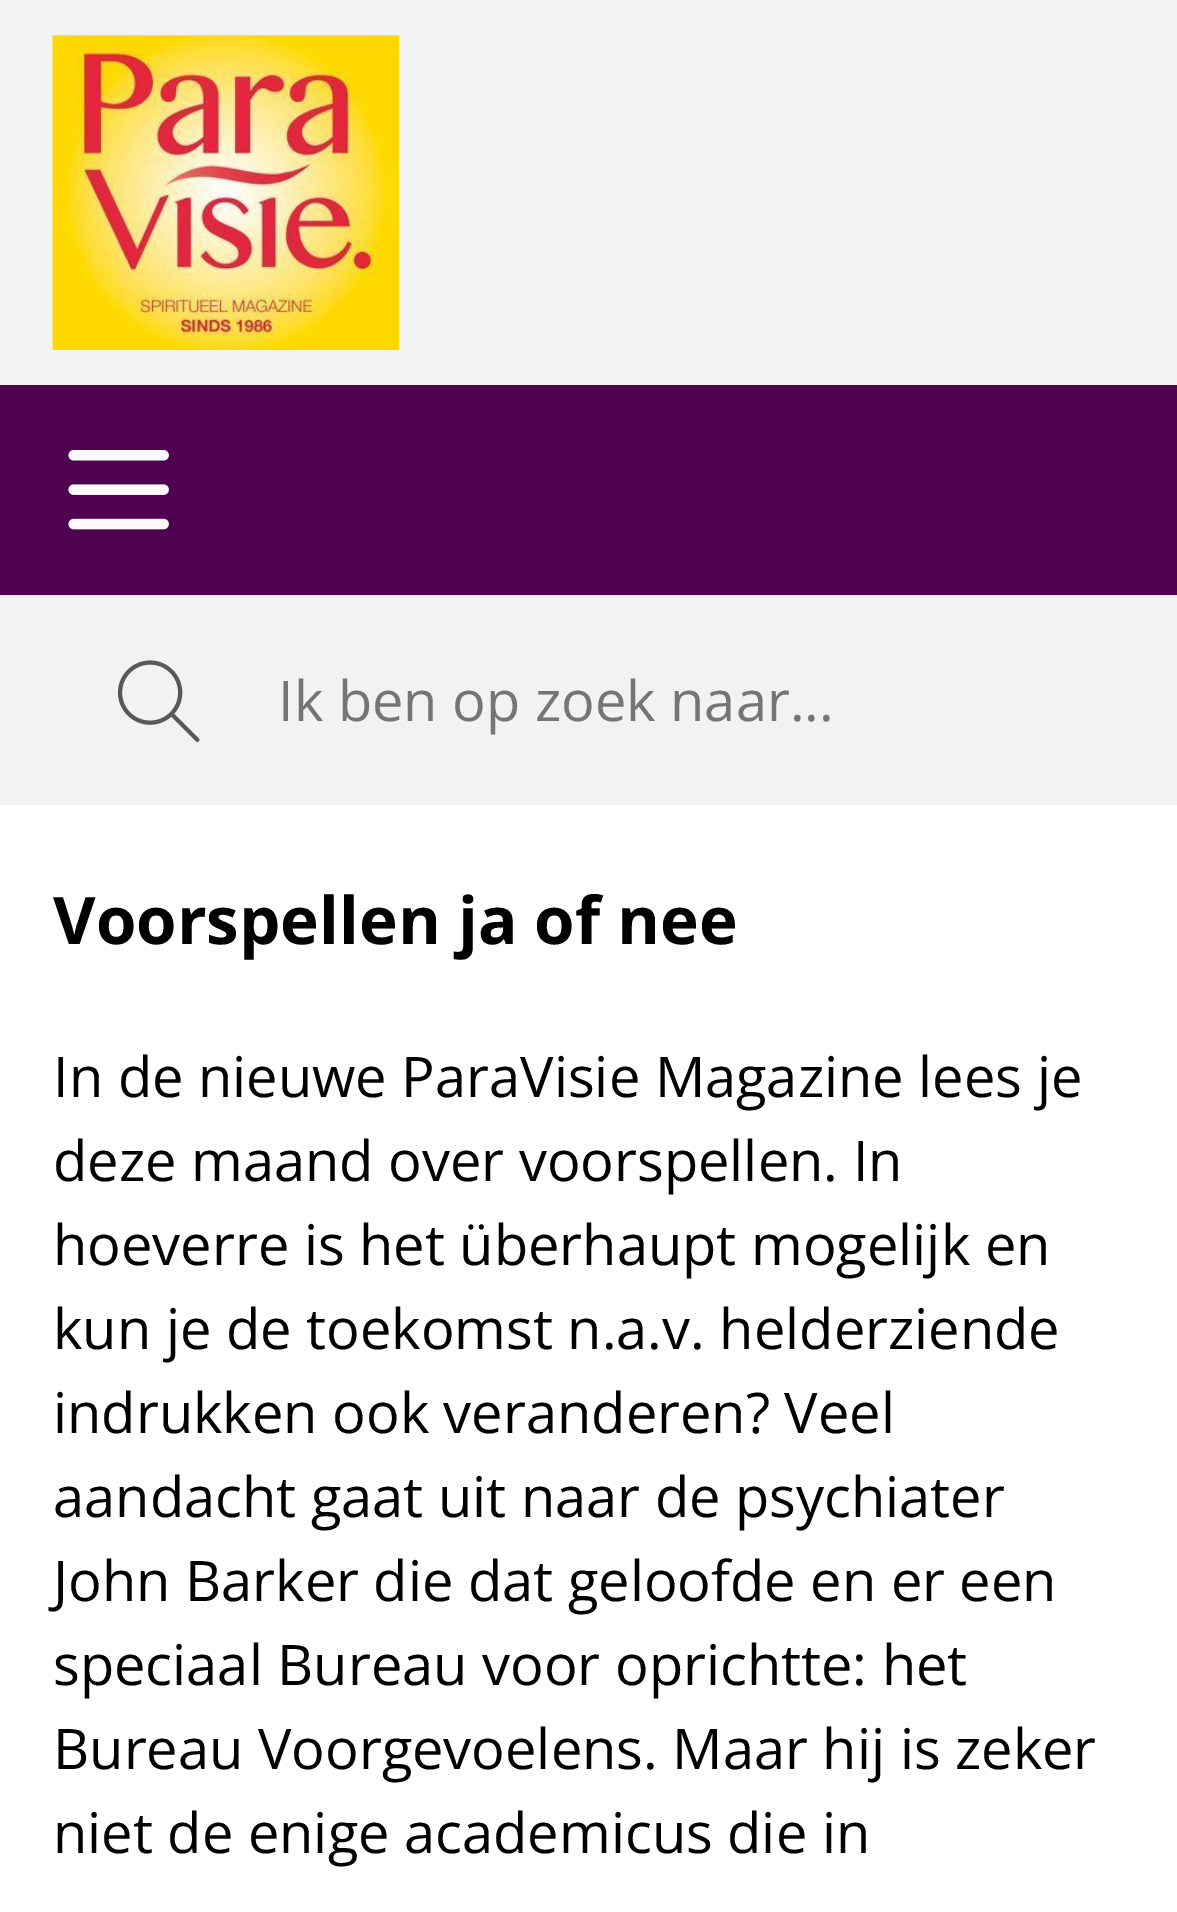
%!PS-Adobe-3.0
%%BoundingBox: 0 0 1177 1912
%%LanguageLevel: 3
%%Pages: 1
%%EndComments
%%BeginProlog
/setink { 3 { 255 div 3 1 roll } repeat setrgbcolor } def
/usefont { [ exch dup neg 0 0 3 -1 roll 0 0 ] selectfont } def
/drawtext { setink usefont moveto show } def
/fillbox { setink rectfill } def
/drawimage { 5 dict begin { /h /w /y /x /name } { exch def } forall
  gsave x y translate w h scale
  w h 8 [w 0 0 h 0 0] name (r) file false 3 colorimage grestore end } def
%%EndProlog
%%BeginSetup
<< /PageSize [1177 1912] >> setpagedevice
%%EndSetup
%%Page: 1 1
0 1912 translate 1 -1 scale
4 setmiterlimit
0 0 1177 1912 255 255 255 fillbox
0 0 1177 385 242 242 242 fillbox
(assets/img1.rgb) 52 35 347 315 drawimage
0 385 1177 210 78 2 80 fillbox
(assets/img2.rgb) 68 450 101 80 drawimage
0 595 1177 210 242 242 242 fillbox
(assets/img3.rgb) 117 660 83 82 drawimage
(Ik ben op zoek naar...) 278 721 /OpenSans-Regular 56 117 117 117 drawtext
(Voorspellen ja of nee) 53 944 /OpenSans-Bold 65.5 0 0 0 drawtext
(In de nieuwe ParaVisie Magazine lees je) 53 1097 /OpenSans-Regular 56 0 0 0 drawtext
(deze maand over voorspellen. In) 53 1181 /OpenSans-Regular 56 0 0 0 drawtext
(hoeverre is het überhaupt mogelijk en) 53 1265 /OpenSans-Regular 56 0 0 0 drawtext
(kun je de toekomst n.a.v. helderziende) 53 1349 /OpenSans-Regular 56 0 0 0 drawtext
(indrukken ook veranderen? Veel) 53 1433 /OpenSans-Regular 56 0 0 0 drawtext
(aandacht gaat uit naar de psychiater) 53 1517 /OpenSans-Regular 56 0 0 0 drawtext
(John Barker die dat geloofde en er een) 53 1601 /OpenSans-Regular 56 0 0 0 drawtext
(speciaal Bureau voor oprichtte: het) 53 1685 /OpenSans-Regular 56 0 0 0 drawtext
(Bureau Voorgevoelens. Maar hij is zeker) 53 1769 /OpenSans-Regular 56 0 0 0 drawtext
(niet de enige academicus die in) 53 1853 /OpenSans-Regular 56 0 0 0 drawtext
showpage
%%EOF
